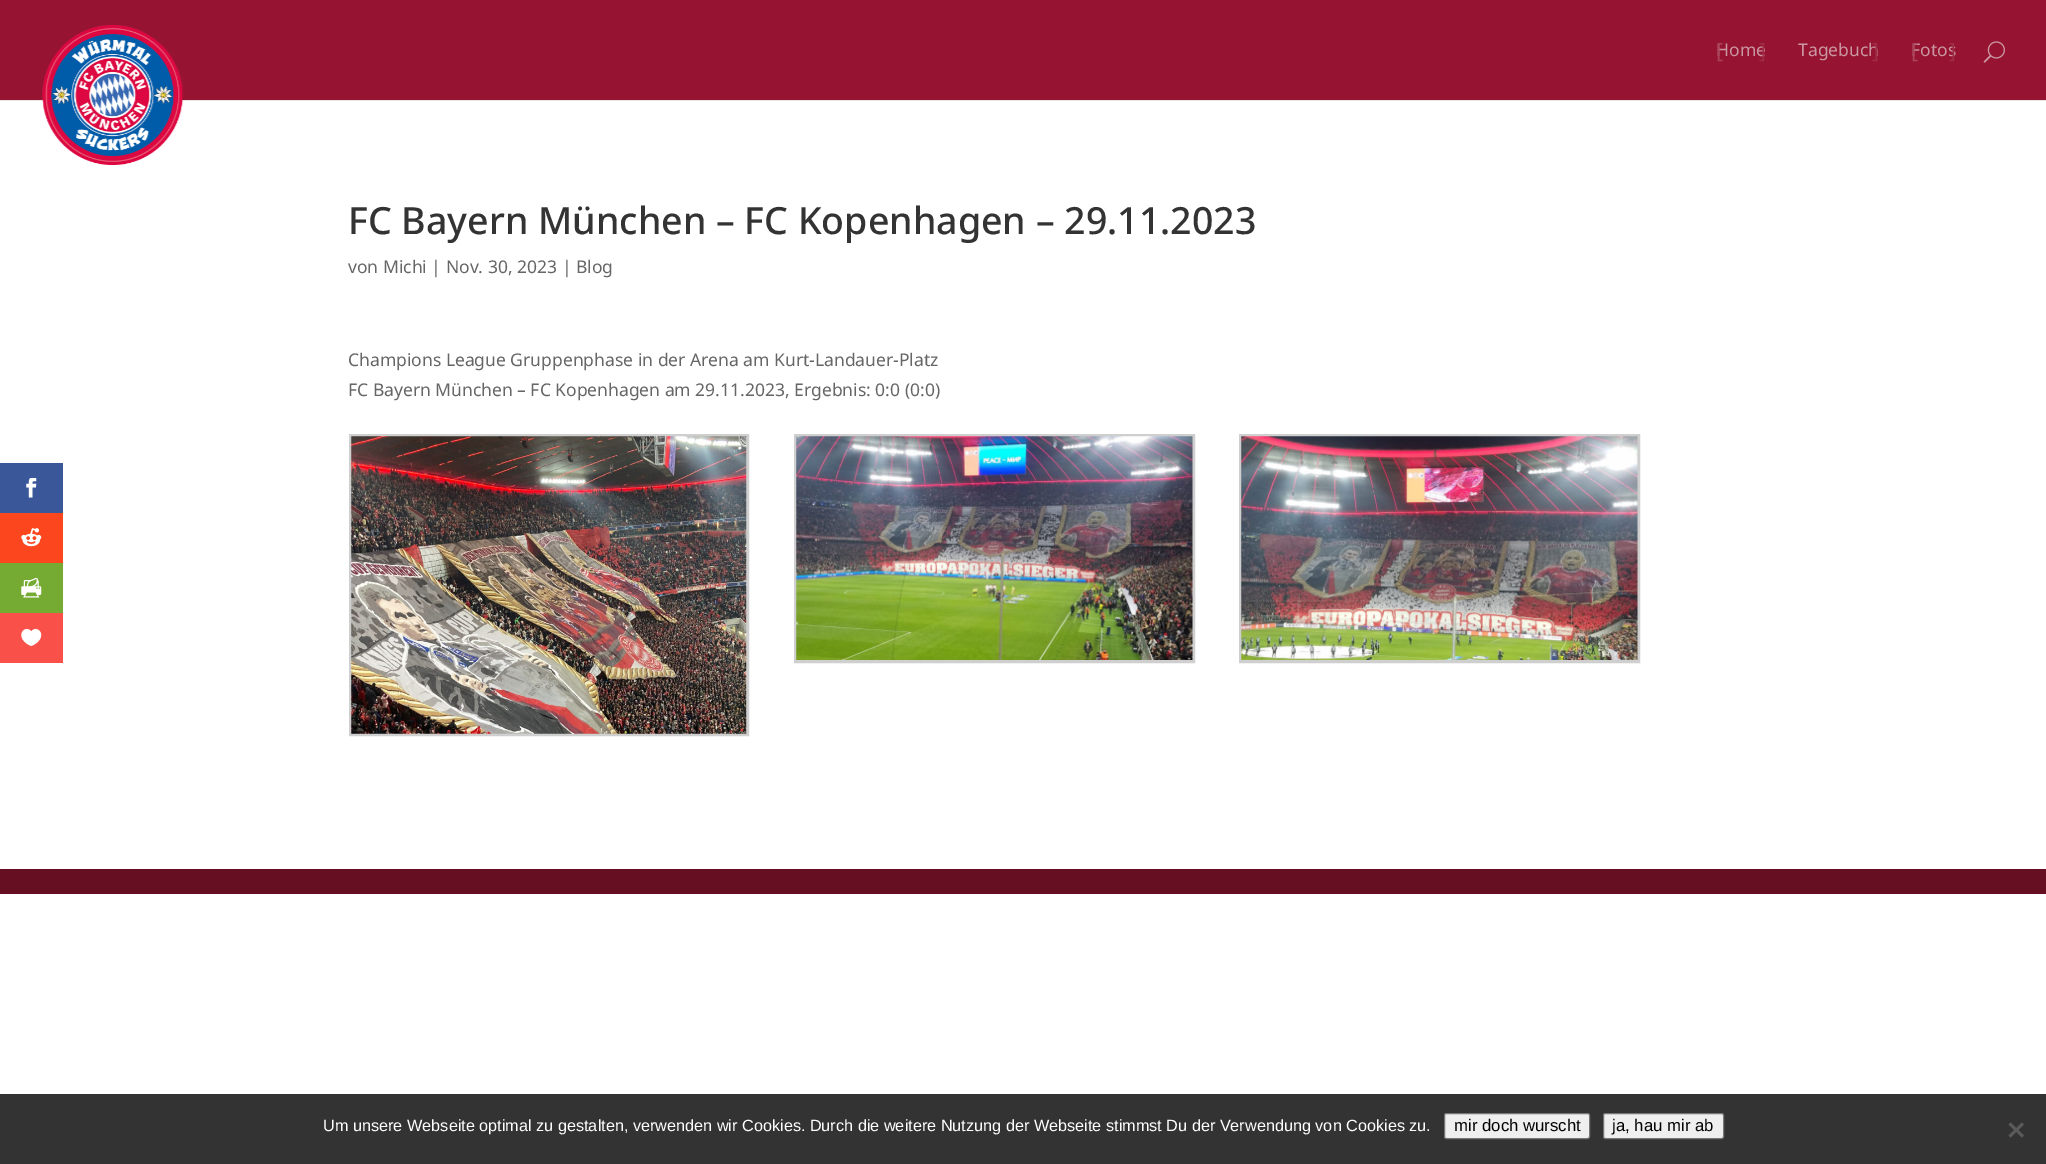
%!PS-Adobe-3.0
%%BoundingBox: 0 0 2046 1164
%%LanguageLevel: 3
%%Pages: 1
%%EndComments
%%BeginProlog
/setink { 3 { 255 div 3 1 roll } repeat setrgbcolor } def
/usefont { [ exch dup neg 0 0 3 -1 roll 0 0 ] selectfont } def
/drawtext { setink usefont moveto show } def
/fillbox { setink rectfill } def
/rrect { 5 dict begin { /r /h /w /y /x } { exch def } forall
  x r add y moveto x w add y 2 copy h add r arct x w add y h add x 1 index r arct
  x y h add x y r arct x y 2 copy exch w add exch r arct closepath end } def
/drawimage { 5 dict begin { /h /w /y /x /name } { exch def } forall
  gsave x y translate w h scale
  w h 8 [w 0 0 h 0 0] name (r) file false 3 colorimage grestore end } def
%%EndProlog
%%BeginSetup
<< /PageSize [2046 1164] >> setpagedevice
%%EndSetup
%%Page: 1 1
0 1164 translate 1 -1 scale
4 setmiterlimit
0 0 2046 1164 255 255 255 fillbox
0 100 2046 1 230 230 230 fillbox
0 0 2046 100 150 20 50 fillbox
(assets/img1.rgb) 42 25 142 140 drawimage
(Home) 1716 56 /NotoSans-Regular 17.5 202 150 162 drawtext
([) 1716 58 /NotoSans-Regular 21 170 69 92 drawtext
(]) 1759 58 /NotoSans-Regular 21 160 45 71 drawtext
(Tagebuch) 1798 56 /NotoSans-Regular 17.5 202 150 162 drawtext
(]) 1872 58 /NotoSans-Regular 21 160 45 71 drawtext
(Fotos) 1911 56 /NotoSans-Regular 17.5 202 150 162 drawtext
([) 1911 58 /NotoSans-Regular 21 170 69 92 drawtext
(]) 1949 58 /NotoSans-Regular 21 160 45 71 drawtext
(assets/img2.rgb) 1983 41 22 22 drawimage
(FC Bayern München – FC Kopenhagen – 29.11.2023) 348 234 /NotoSans-Medium 37.5 51 51 51 drawtext
(von Michi | Nov. 30, 2023 | Blog) 348 273 /NotoSans-Regular 17.5 102 102 102 drawtext
(Champions League Gruppenphase in der Arena am Kurt-Landauer-Platz) 348 366 /NotoSans-Regular 17.5 102 102 102 drawtext
(FC Bayern München – FC Kopenhagen am 29.11.2023, Ergebnis: 0:0 \(0:0\)) 348 396 /NotoSans-Regular 17.5 102 102 102 drawtext
207 207 207 setink
3 setlinewidth
350.5 435.5 397 299 rectstroke
(assets/img3.rgb) 351 436 396 298 drawimage
795.5 435.5 398 226 rectstroke
(assets/img4.rgb) 796 436 397 224 drawimage
1240.5 435.5 398 226 rectstroke
(assets/img5.rgb) 1241 436 397 224 drawimage
0 869 2046 25 102 14 34 fillbox
0 463 63 50 58 87 154 fillbox
(assets/img6.rgb) 26 478 11 20 drawimage
0 513 63 50 252 70 30 fillbox
(assets/img7.rgb) 21 528 21 19 drawimage
0 563 63 50 117 170 51 fillbox
(assets/img8.rgb) 21 578 21 20 drawimage
0 613 63 50 249 81 73 fillbox
(assets/img9.rgb) 21 628 21 18 drawimage
0 1094 2046 70 51 51 51 fillbox
(Um unsere Webseite optimal zu gestalten, verwenden wir Cookies. Durch die weitere Nutzung der Webseite stimmst Du der Verwendung von Cookies zu.) 323 1131 /LiberationSans-Regular 16.25 255 255 255 drawtext
239 239 239 setink
1444.5 1113.5 145 25 2 rrect gsave fill grestore
118 118 118 setink
1 setlinewidth
stroke
(mir doch wurscht) 1454 1131 /LiberationSans-Regular 16.75 0 0 0 drawtext
239 239 239 setink
1603.5 1113.5 120 25 2 rrect gsave fill grestore
118 118 118 setink
stroke
(ja, hau mir ab) 1612 1131 /LiberationSans-Regular 16.75 0 0 0 drawtext
90 90 90 setink
2022 1122.5 moveto 2024 1124.5 lineto 2010.5 1137.5 lineto 2008.5 1135.5 lineto closepath fill
2008.5 1124.5 moveto 2010.5 1122.5 lineto 2024 1135.5 lineto 2022 1137.5 lineto closepath fill
showpage
%%EOF
